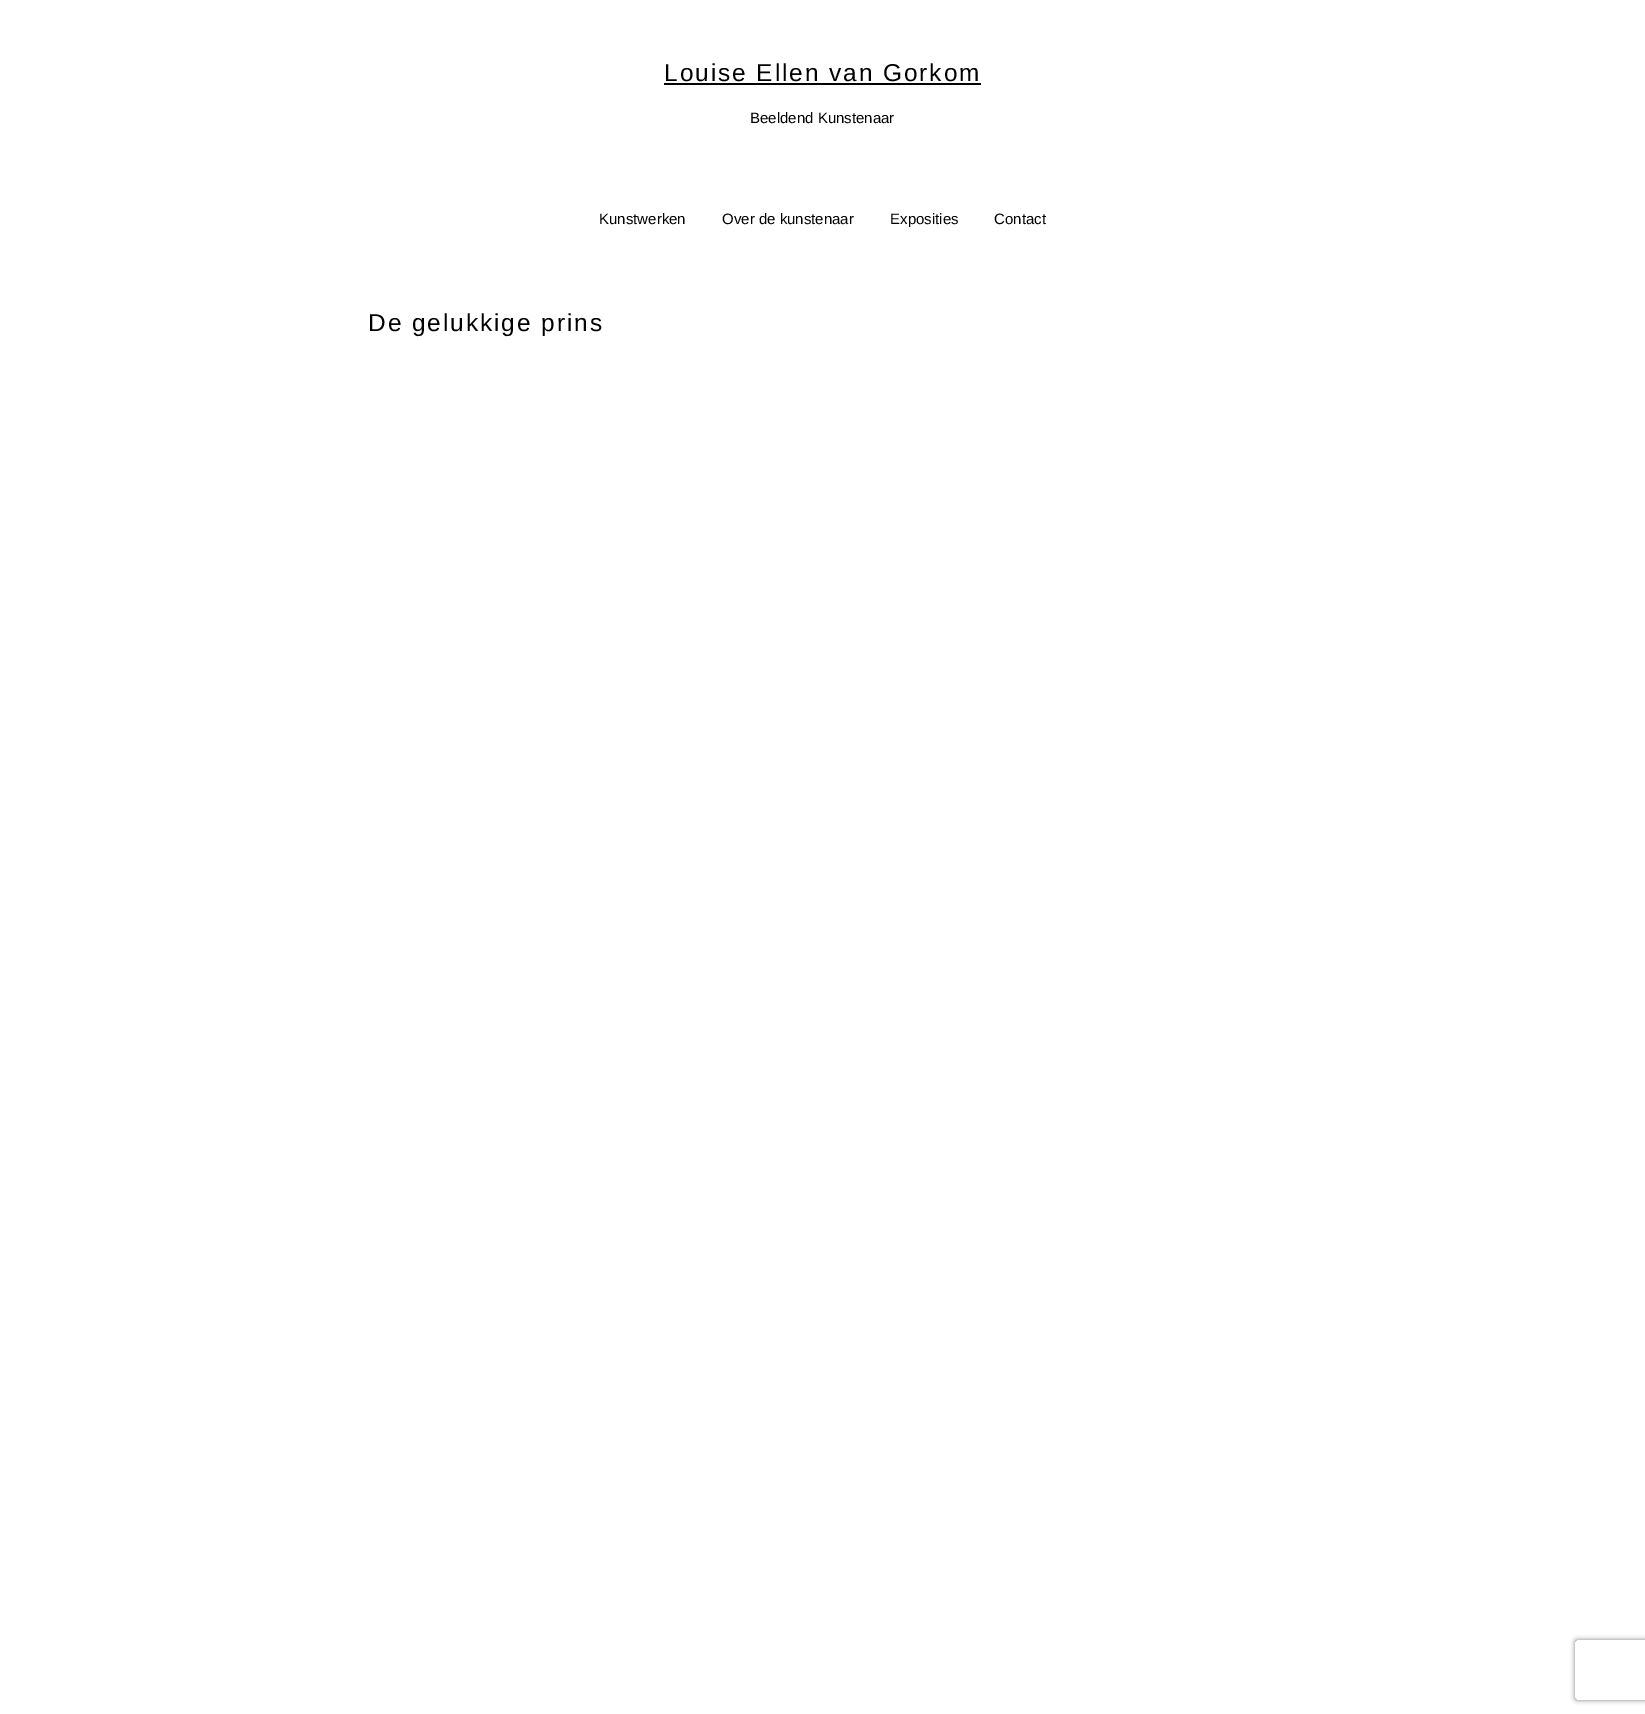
%!PS-Adobe-3.0
%%BoundingBox: 0 0 1645 1714
%%LanguageLevel: 3
%%Pages: 1
%%EndComments
%%BeginProlog
/setink { 3 { 255 div 3 1 roll } repeat setrgbcolor } def
/usefont { [ exch dup neg 0 0 3 -1 roll 0 0 ] selectfont } def
/drawtext { setink usefont moveto show } def
/fillbox { setink rectfill } def
/setalpha { dup .setfillconstantalpha .setstrokeconstantalpha } def
/rrect { 5 dict begin { /r /h /w /y /x } { exch def } forall
  x r add y moveto x w add y 2 copy h add r arct x w add y h add x 1 index r arct
  x y h add x y r arct x y 2 copy exch w add exch r arct closepath end } def
/softshadow { 12 dict begin { /a /b /q /h /w /y /x } { exch def } forall gsave /was 0 def
  9 -2 -9 { dup b mul 4 div /e exch def 1 sub .425 mul 2.718 exch exp 1 add a .99 .min exch div /now exch def
    1 1 now sub 1 was sub div sub setalpha /was now def
    w h .min e 2 mul add 0 gt { x e sub y e sub w e 2 mul add h e 2 mul add
      q e add b .6 mul add w h .min 2 div e add .min 0 .max rrect fill } if } for grestore end } def
%%EndProlog
%%BeginSetup
<< /PageSize [1645 1714] /PageUsesTransparency true >> setpagedevice
%%EndSetup
%%Page: 1 1
0 .pushpdf14devicefilter
0 1714 translate 1 -1 scale
4 setmiterlimit
0 0 1645 1714 255 255 255 fillbox
/LiberationSans-Regular 24.4 usefont
0 0 0 setink
664 81 moveto 1.95 0 (Louise Ellen van Gorkom) ashow
664 83 317 2 0 0 0 fillbox
(Beeldend Kunstenaar) 750 123 /LiberationSans-Regular 15 0 0 0 drawtext
(Kunstwerken) 599 224 /LiberationSans-Regular 15 0 0 0 drawtext
(Over de kunstenaar) 722 224 /LiberationSans-Regular 15 0 0 0 drawtext
(Exposities) 890 224 /LiberationSans-Regular 15 0 0 0 drawtext
(Contact) 994 224 /LiberationSans-Regular 15 0 0 0 drawtext
/LiberationSans-Regular 24.4 usefont
368 331 moveto 1.95 0 (De gelukkige prins) ashow
gsave
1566 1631 moveto 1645 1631 lineto 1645 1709 lineto 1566 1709 lineto closepath 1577 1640 moveto 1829 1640 lineto 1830 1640 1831 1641 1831 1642 curveto 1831 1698 lineto 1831 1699 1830 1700 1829 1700 curveto 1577 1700 lineto 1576 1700 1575 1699 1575 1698 curveto 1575 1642 lineto 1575 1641 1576 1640 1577 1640 curveto closepath eoclip newpath
128 128 128 setink
1575 1640 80 60 2 2.5 1 softshadow
grestore
.poppdf14devicefilter showpage
%%EOF
